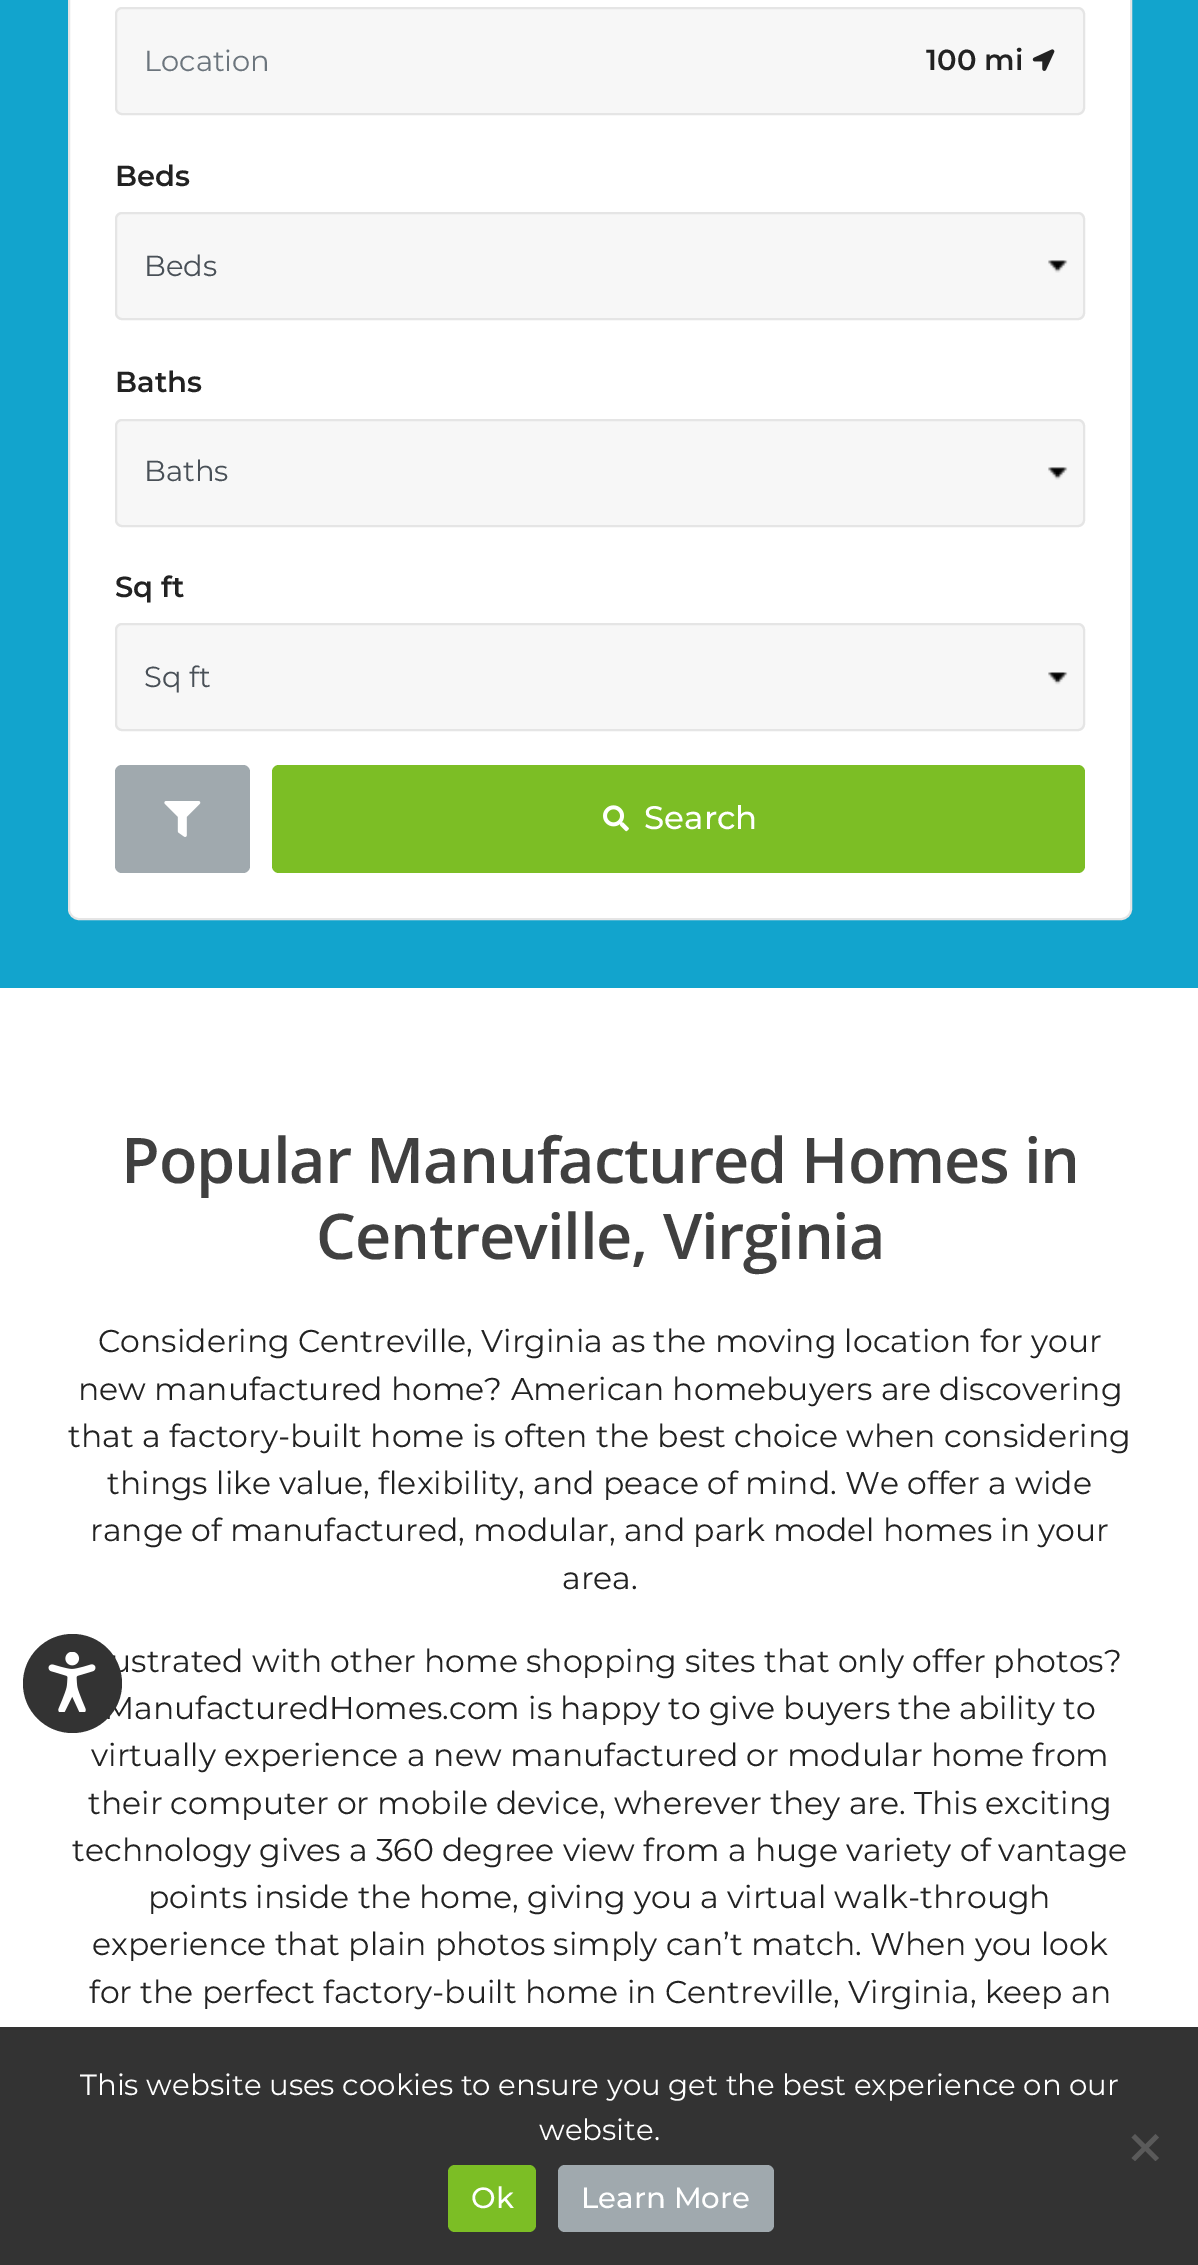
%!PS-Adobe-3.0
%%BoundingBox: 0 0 1198 2265
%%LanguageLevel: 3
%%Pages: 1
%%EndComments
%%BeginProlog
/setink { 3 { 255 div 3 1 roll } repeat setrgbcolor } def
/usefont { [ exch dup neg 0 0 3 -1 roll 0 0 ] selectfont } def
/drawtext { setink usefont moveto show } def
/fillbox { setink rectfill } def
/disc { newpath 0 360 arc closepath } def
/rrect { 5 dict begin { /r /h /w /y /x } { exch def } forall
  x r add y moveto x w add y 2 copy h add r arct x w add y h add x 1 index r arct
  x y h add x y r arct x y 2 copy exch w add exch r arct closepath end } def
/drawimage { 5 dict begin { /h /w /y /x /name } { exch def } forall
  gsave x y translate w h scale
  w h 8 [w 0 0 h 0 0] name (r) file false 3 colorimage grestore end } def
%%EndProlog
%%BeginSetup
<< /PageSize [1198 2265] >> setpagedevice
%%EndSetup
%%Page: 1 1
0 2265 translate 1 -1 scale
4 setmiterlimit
0 0 1198 2265 255 255 255 fillbox
0 0 1198 988 18 164 205 fillbox
255 255 255 setink
69 -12 1062 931 10 rrect gsave fill grestore
229 229 229 setink
2 setlinewidth
stroke
247 247 247 setink
116 8 968 106 6 rrect gsave fill grestore
229 229 229 setink
stroke
(Location) 144 71 /Montserrat-Regular 29 108 117 125 drawtext
(100 mi) 926 70 /Montserrat-SemiBold 29 34 34 34 drawtext
(assets/img1.rgb) 1032 49 23 22 drawimage
(Beds) 115 186 /Montserrat-SemiBold 29 34 34 34 drawtext
247 247 247 setink
115 212 970 108 7 rrect fill
(assets/img2.rgb) 1048 260 20 13 drawimage
229 229 229 setink
116 213 968 106 6 rrect stroke
(Beds) 144 276 /Montserrat-Regular 29 73 80 87 drawtext
(Baths) 115 392 /Montserrat-SemiBold 29 34 34 34 drawtext
247 247 247 setink
115 419 970 108 7 rrect fill
(assets/img2.rgb) 1048 467 20 13 drawimage
229 229 229 setink
116 420 968 106 6 rrect stroke
(Baths) 144 481 /Montserrat-Regular 29 73 80 87 drawtext
(Sq ft) 115 597 /Montserrat-SemiBold 29 34 34 34 drawtext
247 247 247 setink
115 623 970 108 7 rrect fill
(assets/img3.rgb) 1048 672 20 13 drawimage
229 229 229 setink
116 624 968 106 6 rrect stroke
(Sq ft) 144 687 /Montserrat-Regular 29 73 80 87 drawtext
160 169 174 setink
115 765 135 108 7 rrect fill
(assets/img4.rgb) 164 801 37 36 drawimage
124 190 37 setink
272 765 813 108 7 rrect fill
(assets/img5.rgb) 603 805 26 27 drawimage
(Search) 644 829 /Montserrat-Medium 32.5 255 255 255 drawtext
/OpenSans-SemiBold 63 usefont
64 64 64 setink
121 1183 moveto -1.1 0 (Popular Manufactured Homes in) ashow
316 1259 moveto -1.1 0 (Centreville, Virginia) ashow
(Considering Centreville, Virginia as the moving location for your) 98 1352 /Montserrat-Regular 31.5 34 34 34 drawtext
(new manufactured home? American homebuyers are discovering) 78 1400 /Montserrat-Regular 31.5 34 34 34 drawtext
(that a factory-built home is often the best choice when considering) 68 1447 /Montserrat-Regular 31.5 34 34 34 drawtext
(things like value, flexibility, and peace of mind. We offer a wide) 107 1494 /Montserrat-Regular 31.5 34 34 34 drawtext
(range of manufactured, modular, and park model homes in your) 90 1541 /Montserrat-Regular 31.5 34 34 34 drawtext
(area.) 562 1589 /Montserrat-Regular 31.5 34 34 34 drawtext
(ustrated with other home shopping sites that only offer photos?) 110 1672 /Montserrat-Regular 31.5 34 34 34 drawtext
(ManufacturedHomes.com is happy to give buyers the ability to) 104 1719 /Montserrat-Regular 31.5 34 34 34 drawtext
(virtually experience a new manufactured or modular home from) 91 1766 /Montserrat-Regular 31.5 34 34 34 drawtext
(their computer or mobile device, wherever they are. This exciting) 88 1814 /Montserrat-Regular 31.5 34 34 34 drawtext
(technology gives a 360 degree view from a huge variety of vantage) 72 1861 /Montserrat-Regular 31.5 34 34 34 drawtext
(points inside the home, giving you a virtual walk-through) 148 1908 /Montserrat-Regular 31.5 34 34 34 drawtext
(experience that plain photos simply can’t match. When you look) 92 1955 /Montserrat-Regular 31.5 34 34 34 drawtext
(for the perfect factory-built home in Centreville, Virginia, keep an) 89 2003 /Montserrat-Regular 31.5 34 34 34 drawtext
51 51 51 setink
72.5 1683.5 49.5 disc fill
(assets/img6.rgb) 48 1652 48 60 drawimage
0 2027 1198 238 51 51 51 fillbox
(This website uses cookies to ensure you get the best experience on our) 80 2095 /Montserrat-Regular 29.25 255 255 255 drawtext
(website.) 539 2140 /Montserrat-Regular 29.25 255 255 255 drawtext
90 90 90 setink
1155.5 2134 moveto 1159 2137.5 lineto 1135 2161 lineto 1131.5 2158 lineto closepath fill
1131.5 2137.5 moveto 1135 2134 lineto 1159 2158 lineto 1155.5 2161 lineto closepath fill
124 190 37 setink
448 2165 88 67 7 rrect fill
(Ok) 471 2208 /Montserrat-Medium 29.25 255 255 255 drawtext
160 169 174 setink
558 2165 216 67 7 rrect fill
(Learn More) 581 2208 /Montserrat-Medium 29.25 255 255 255 drawtext
showpage
%%EOF
